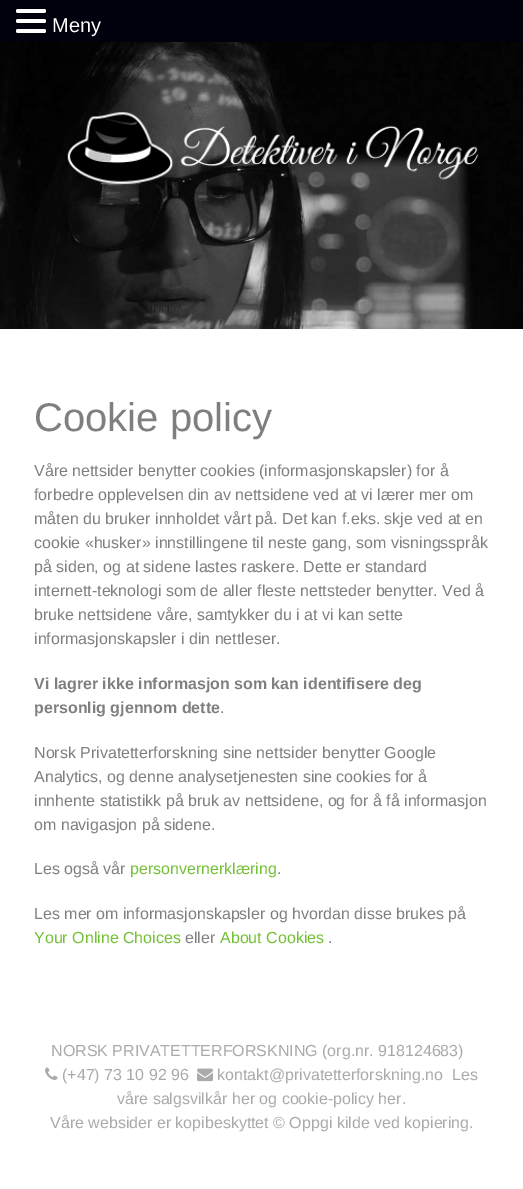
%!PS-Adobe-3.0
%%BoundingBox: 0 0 523 1189
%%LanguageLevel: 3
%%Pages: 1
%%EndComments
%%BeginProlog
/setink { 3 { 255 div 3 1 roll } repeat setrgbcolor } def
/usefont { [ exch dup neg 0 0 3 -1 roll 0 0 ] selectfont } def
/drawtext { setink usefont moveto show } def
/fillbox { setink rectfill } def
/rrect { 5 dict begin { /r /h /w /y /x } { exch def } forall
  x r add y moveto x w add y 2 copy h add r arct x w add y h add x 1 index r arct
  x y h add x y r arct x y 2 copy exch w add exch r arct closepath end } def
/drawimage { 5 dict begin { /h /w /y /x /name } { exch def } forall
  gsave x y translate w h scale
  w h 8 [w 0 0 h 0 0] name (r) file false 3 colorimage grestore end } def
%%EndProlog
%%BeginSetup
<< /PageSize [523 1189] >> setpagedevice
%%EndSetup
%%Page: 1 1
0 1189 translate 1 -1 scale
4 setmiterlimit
0 0 523 1189 255 255 255 fillbox
0 0 523 42 0 1 12 fillbox
255 255 255 setink
16 9 30 4 2 rrect fill
16 19 30 4 2 rrect fill
16 29 30 4 2 rrect fill
(Meny) 52 32 /LiberationSans-Regular 20 255 255 255 drawtext
(assets/img1.rgb) 0 42 523 287 drawimage
(assets/img2.rgb) 67 112 412 72 drawimage
(Cookie policy) 34 431 /LiberationSans-Regular 40 127 127 127 drawtext
(Våre nettsider benytter cookies \(informasjonskapsler\) for å) 34 476 /LiberationSans-Regular 16 127 127 127 drawtext
(forbedre opplevelsen din av nettsidene ved at vi lærer mer om) 34 500 /LiberationSans-Regular 16 127 127 127 drawtext
(måten du bruker innholdet vårt på. Det kan f.eks. skje ved at en) 34 524 /LiberationSans-Regular 16 127 127 127 drawtext
(cookie «husker» innstillingene til neste gang, som visningsspråk) 34 548 /LiberationSans-Regular 16 127 127 127 drawtext
(på siden, og at sidene lastes raskere. Dette er standard) 34 572 /LiberationSans-Regular 16 127 127 127 drawtext
(internett-teknologi som de aller fleste nettsteder benytter. Ved å) 34 596 /LiberationSans-Regular 16 127 127 127 drawtext
(bruke nettsidene våre, samtykker du i at vi kan sette) 34 620 /LiberationSans-Regular 16 127 127 127 drawtext
(informasjonskapsler i din nettleser.) 34 644 /LiberationSans-Regular 16 127 127 127 drawtext
(Vi lagrer ikke informasjon som kan identifisere deg) 34 689 /LiberationSans-Bold 16 127 127 127 drawtext
(personlig gjennom dette) 34 713 /LiberationSans-Bold 16 127 127 127 drawtext
(.) 220 713 /LiberationSans-Regular 16 127 127 127 drawtext
(Norsk Privatetterforskning sine nettsider benytter Google) 34 758 /LiberationSans-Regular 16 127 127 127 drawtext
(Analytics, og denne analysetjenesten sine cookies for å) 34 782 /LiberationSans-Regular 16 127 127 127 drawtext
(innhente statistikk på bruk av nettsidene, og for å få informasjon) 34 806 /LiberationSans-Regular 16 127 127 127 drawtext
(om navigasjon på sidene.) 34 830 /LiberationSans-Regular 16 127 127 127 drawtext
(Les også vår) 34 874 /LiberationSans-Regular 16 127 127 127 drawtext
(personvernerklæring) 130 874 /LiberationSans-Regular 16 115 193 53 drawtext
(.) 277 874 /LiberationSans-Regular 16 127 127 127 drawtext
(Les mer om informasjonskapsler og hvordan disse brukes på) 34 919 /LiberationSans-Regular 16 127 127 127 drawtext
(Your Online Choices) 34 943 /LiberationSans-Regular 16 115 193 53 drawtext
(eller) 185 943 /LiberationSans-Regular 16 127 127 127 drawtext
(About Cookies) 220 943 /LiberationSans-Regular 16 115 193 53 drawtext
(.) 328 943 /LiberationSans-Regular 16 127 127 127 drawtext
(NORSK PRIVATETTERFORSKNING \(org.nr. 918124683\)) 51 1056 /LiberationSans-Regular 16 170 170 170 drawtext
(assets/img3.rgb) 45 1067 13 13 drawimage
(\(+47\) 73 10 92 96) 62 1080 /LiberationSans-Regular 16 170 170 170 drawtext
(assets/img4.rgb) 197 1068 16 14 drawimage
(kontakt@privatetterforskning.no) 217 1080 /LiberationSans-Regular 16 170 170 170 drawtext
(Les) 452 1080 /LiberationSans-Regular 16 170 170 170 drawtext
(våre salgsvilkår her og cookie-policy her.) 117 1104 /LiberationSans-Regular 16 170 170 170 drawtext
(Våre websider er kopibeskyttet © Oppgi kilde ved kopiering.) 50 1128 /LiberationSans-Regular 16 170 170 170 drawtext
showpage
%%EOF
